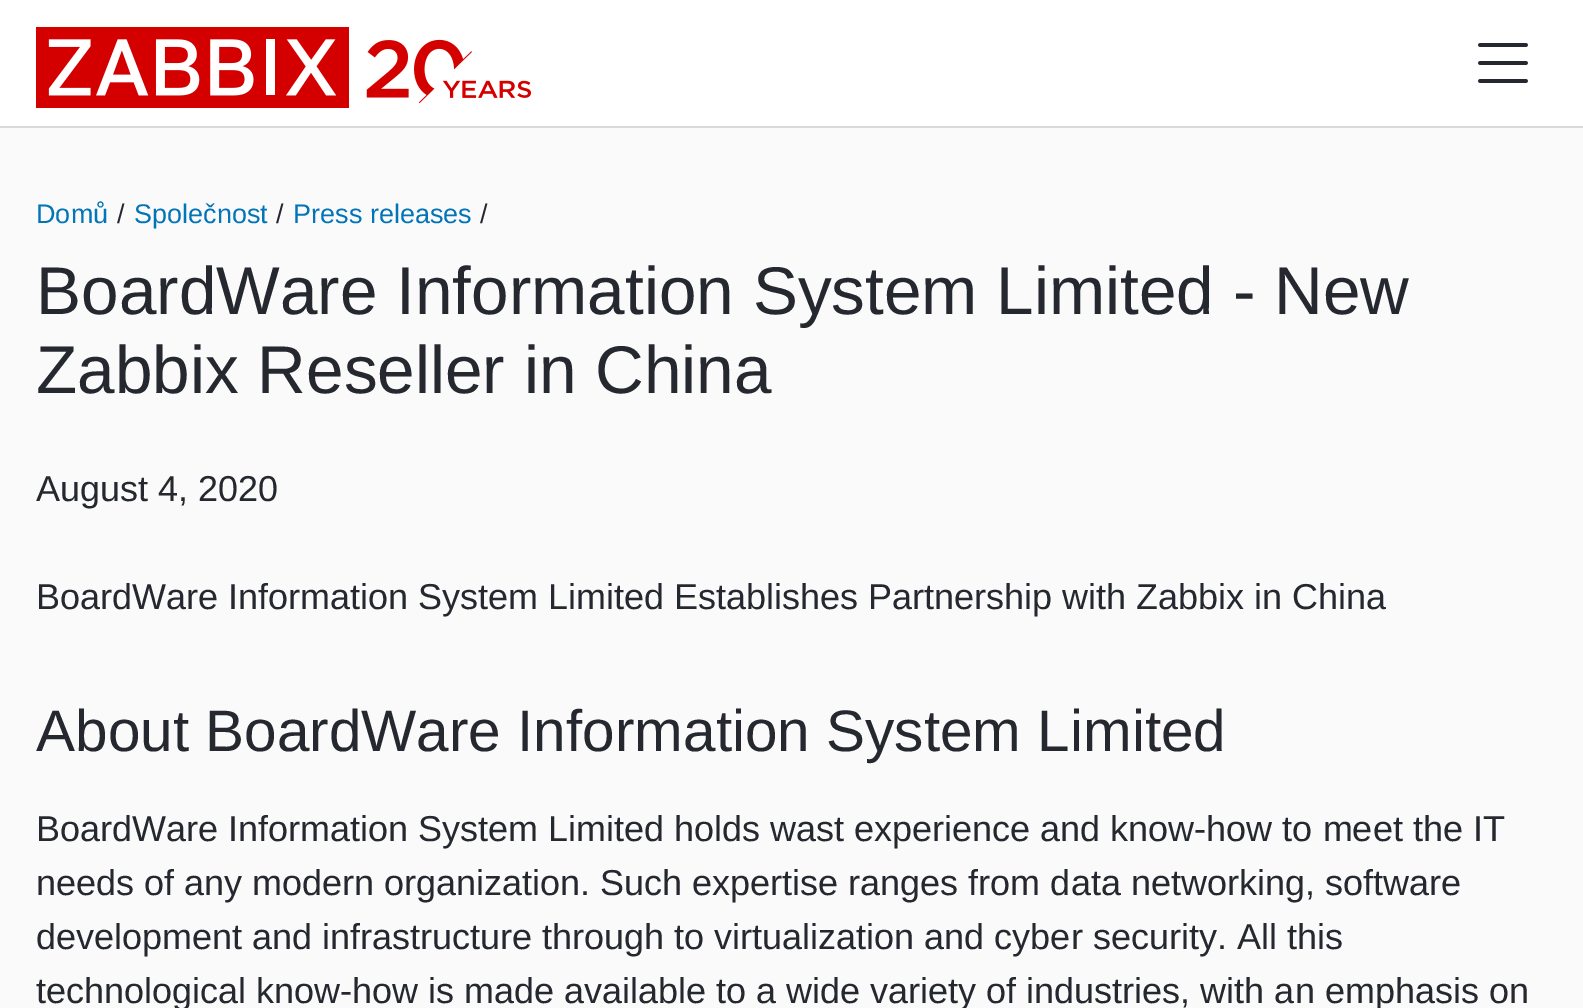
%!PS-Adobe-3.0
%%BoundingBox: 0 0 1583 1008
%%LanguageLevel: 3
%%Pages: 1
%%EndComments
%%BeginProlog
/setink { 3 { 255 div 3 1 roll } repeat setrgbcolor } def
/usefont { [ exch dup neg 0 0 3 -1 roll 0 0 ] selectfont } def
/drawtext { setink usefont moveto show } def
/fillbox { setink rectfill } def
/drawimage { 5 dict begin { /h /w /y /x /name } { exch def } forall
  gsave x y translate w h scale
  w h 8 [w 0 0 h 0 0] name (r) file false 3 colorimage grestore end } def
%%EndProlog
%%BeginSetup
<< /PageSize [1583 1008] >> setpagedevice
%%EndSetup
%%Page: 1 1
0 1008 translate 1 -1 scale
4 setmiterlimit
0 0 1583 1008 250 250 250 fillbox
0 126 1583 2 218 218 219 fillbox
0 0 1583 126 255 255 255 fillbox
(assets/img1.rgb) 36 27 495 81 drawimage
(assets/img2.rgb) 1478 43 50 40 drawimage
(Domů) 36 223 /LiberationSans-Regular 27 2 117 184 drawtext
(/) 117 223 /LiberationSans-Regular 27 37 40 47 drawtext
(Společnost) 134 223 /LiberationSans-Regular 27 2 117 184 drawtext
(/) 276 223 /LiberationSans-Regular 27 37 40 47 drawtext
(Press releases) 293 223 /LiberationSans-Regular 27 2 117 184 drawtext
(/) 480 223 /LiberationSans-Regular 27 37 40 47 drawtext
(BoardWare Information System Limited - New) 36 314 /LiberationSans-Regular 67.5 37 40 47 drawtext
(Zabbix Reseller in China) 36 393 /LiberationSans-Regular 67.5 37 40 47 drawtext
(August 4, 2020) 36 501 /LiberationSans-Regular 36 37 40 47 drawtext
(BoardWare Information System Limited Establishes Partnership with Zabbix in China) 36 609 /LiberationSans-Regular 36 37 40 47 drawtext
(About BoardWare Information System Limited) 36 751 /LiberationSans-Regular 58.5 37 40 47 drawtext
(BoardWare Information System Limited holds wast experience and know-how to meet the IT) 36 841 /LiberationSans-Regular 36 37 40 47 drawtext
(needs of any modern organization. Such expertise ranges from data networking, software) 36 895 /LiberationSans-Regular 36 37 40 47 drawtext
(development and infrastructure through to virtualization and cyber security. All this) 36 949 /LiberationSans-Regular 36 37 40 47 drawtext
(technological know-how is made available to a wide variety of industries, with an emphasis on) 36 1003 /LiberationSans-Regular 36 37 40 47 drawtext
showpage
%%EOF
